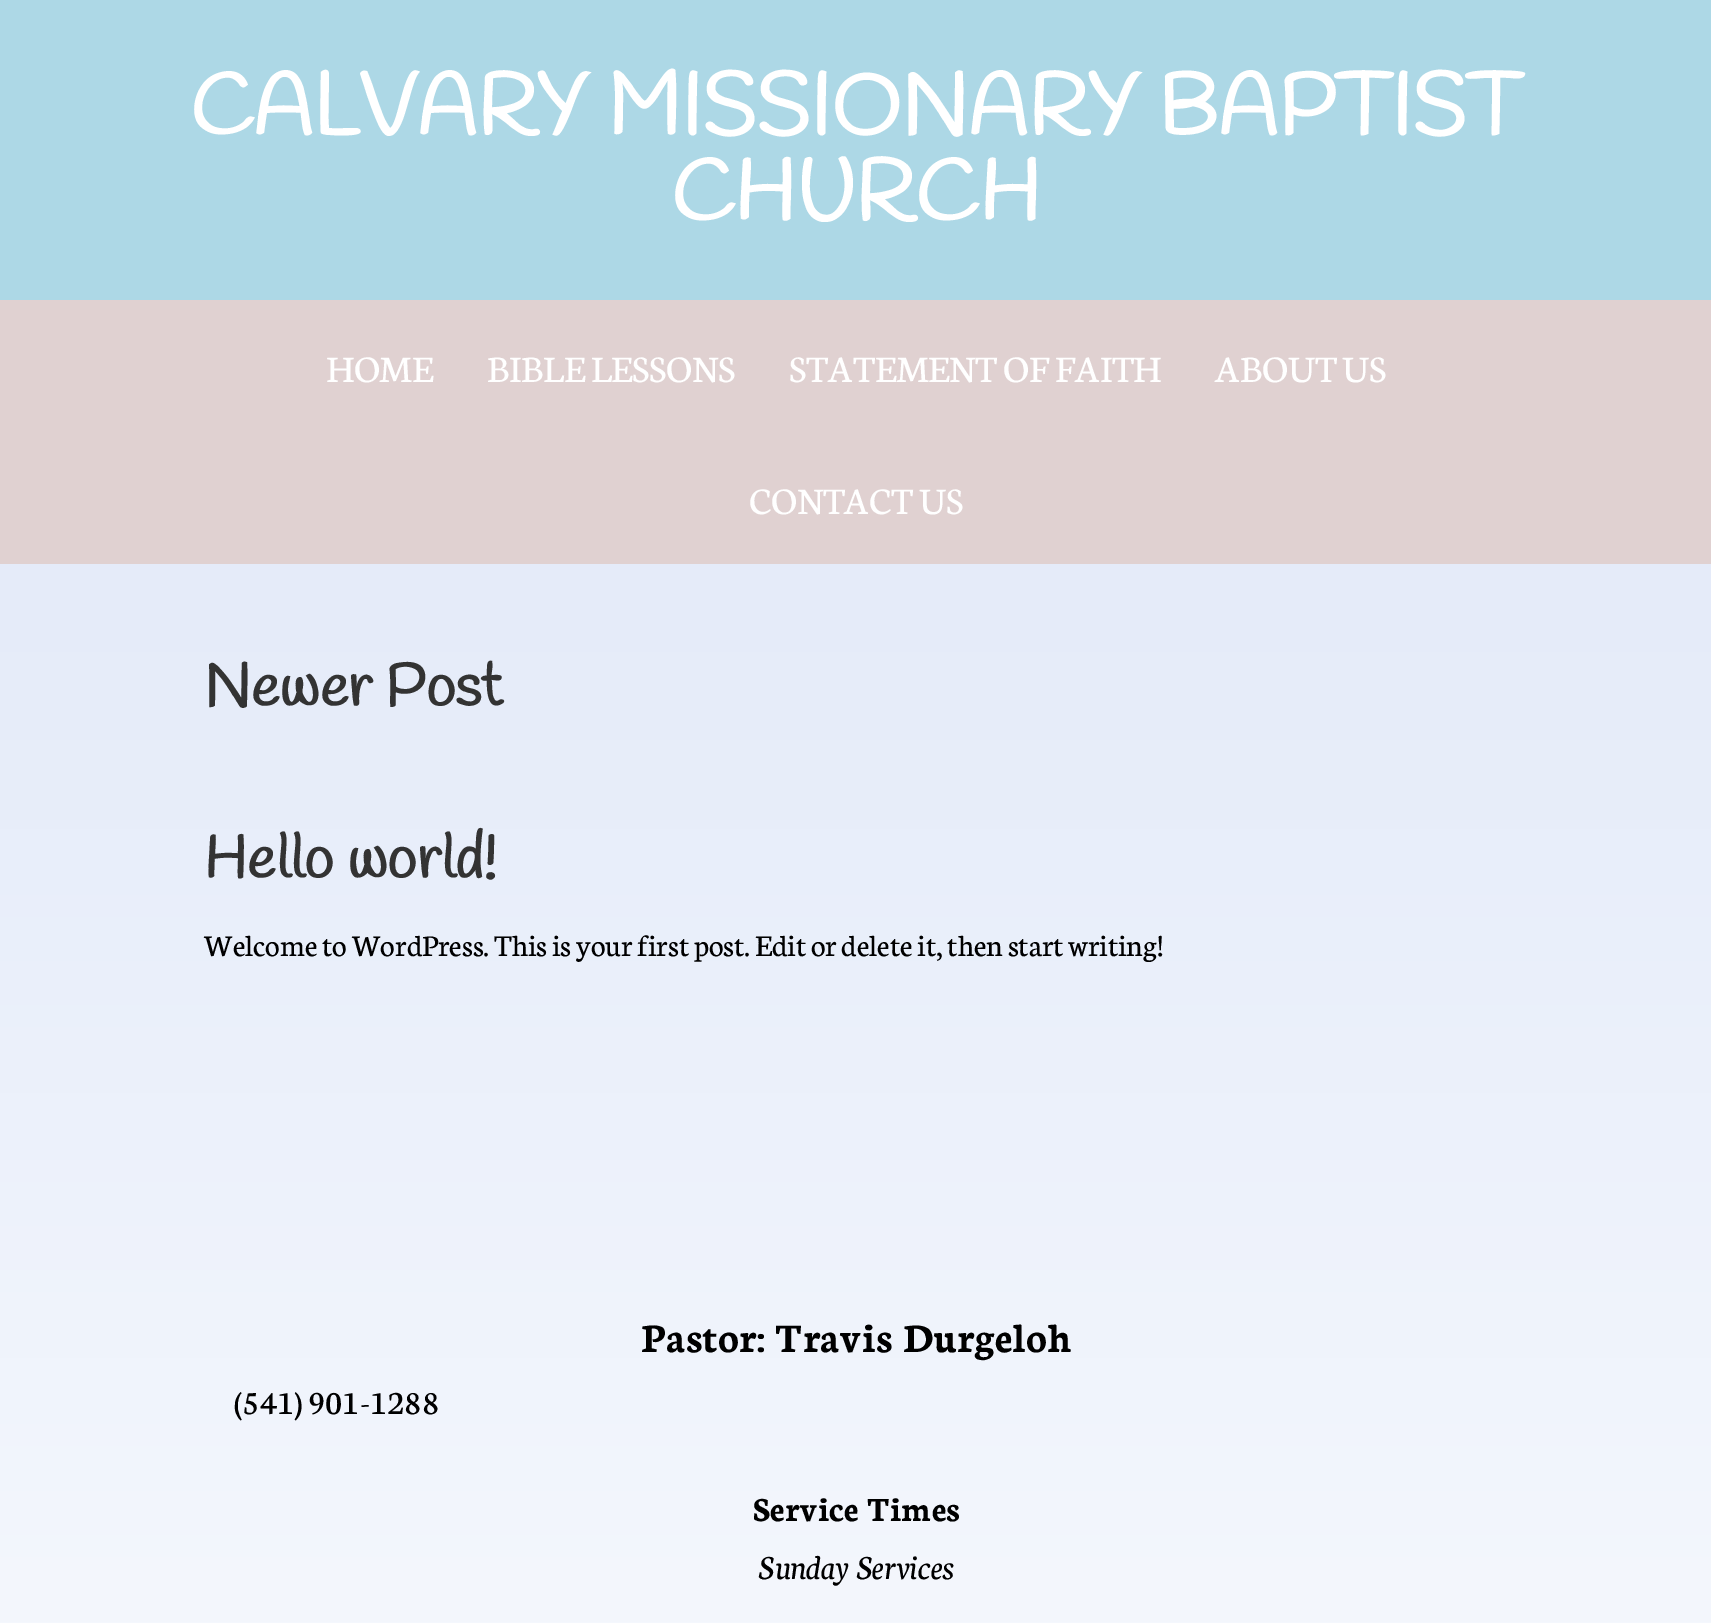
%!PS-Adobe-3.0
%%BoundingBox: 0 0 1711 1623
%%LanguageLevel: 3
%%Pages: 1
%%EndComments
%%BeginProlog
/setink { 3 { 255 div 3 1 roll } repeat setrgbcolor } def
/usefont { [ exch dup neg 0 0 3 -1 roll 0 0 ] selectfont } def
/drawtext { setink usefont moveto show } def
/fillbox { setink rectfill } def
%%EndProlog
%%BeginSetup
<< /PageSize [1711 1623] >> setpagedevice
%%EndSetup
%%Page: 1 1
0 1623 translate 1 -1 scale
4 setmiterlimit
0 0 1711 1623 255 255 255 fillbox
gsave 0 564 moveto 1711 564 lineto 1711 1623 lineto 0 1623 lineto closepath clip newpath
<< /ShadingType 2 /ColorSpace /DeviceRGB /Coords [856 0 856 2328] /Extend [true true] /Function << /FunctionType 2 /Domain [0 1] /C0 [0.863 0.894 0.969] /C1 [1 1 1] /N 1 >> >> shfill grestore
0 0 1711 300 173 216 230 fillbox
(CALVARY MISSIONARY BAPTIST) 190 134 /Handlee-Bold 86 255 255 255 drawtext
(CHURCH) 671 220 /Handlee-Bold 86 255 255 255 drawtext
0 300 1711 264 224 209 209 fillbox
(HOME) 326 382 /Neuton-Regular 40 255 255 255 drawtext
(BIBLE LESSONS) 487 382 /Neuton-Regular 40 255 255 255 drawtext
(STATEMENT OF FAITH) 789 382 /Neuton-Regular 40 255 255 255 drawtext
(ABOUT US) 1215 382 /Neuton-Regular 40 255 255 255 drawtext
(CONTACT US) 749 514 /Neuton-Regular 40 255 255 255 drawtext
(Newer Post) 204 706 /Handlee-Bold 60 51 51 51 drawtext
(Hello world!) 204 878 /Handlee-Bold 60 51 51 51 drawtext
(Welcome to WordPress. This is your first post. Edit or delete it, then start writing!) 204 956 /Neuton-Regular 32 0 0 0 drawtext
(Pastor: Travis Durgeloh) 641 1352 /Neuton-Bold 43.25 0 0 0 drawtext
(\(541\) 901-1288) 234 1414 /Neuton-Regular 36 0 0 0 drawtext
(Service Times) 753 1521 /Neuton-Bold 36 0 0 0 drawtext
(Sunday Services) 758 1579 /Neuton-Italic 36 0 0 0 drawtext
showpage
%%EOF
